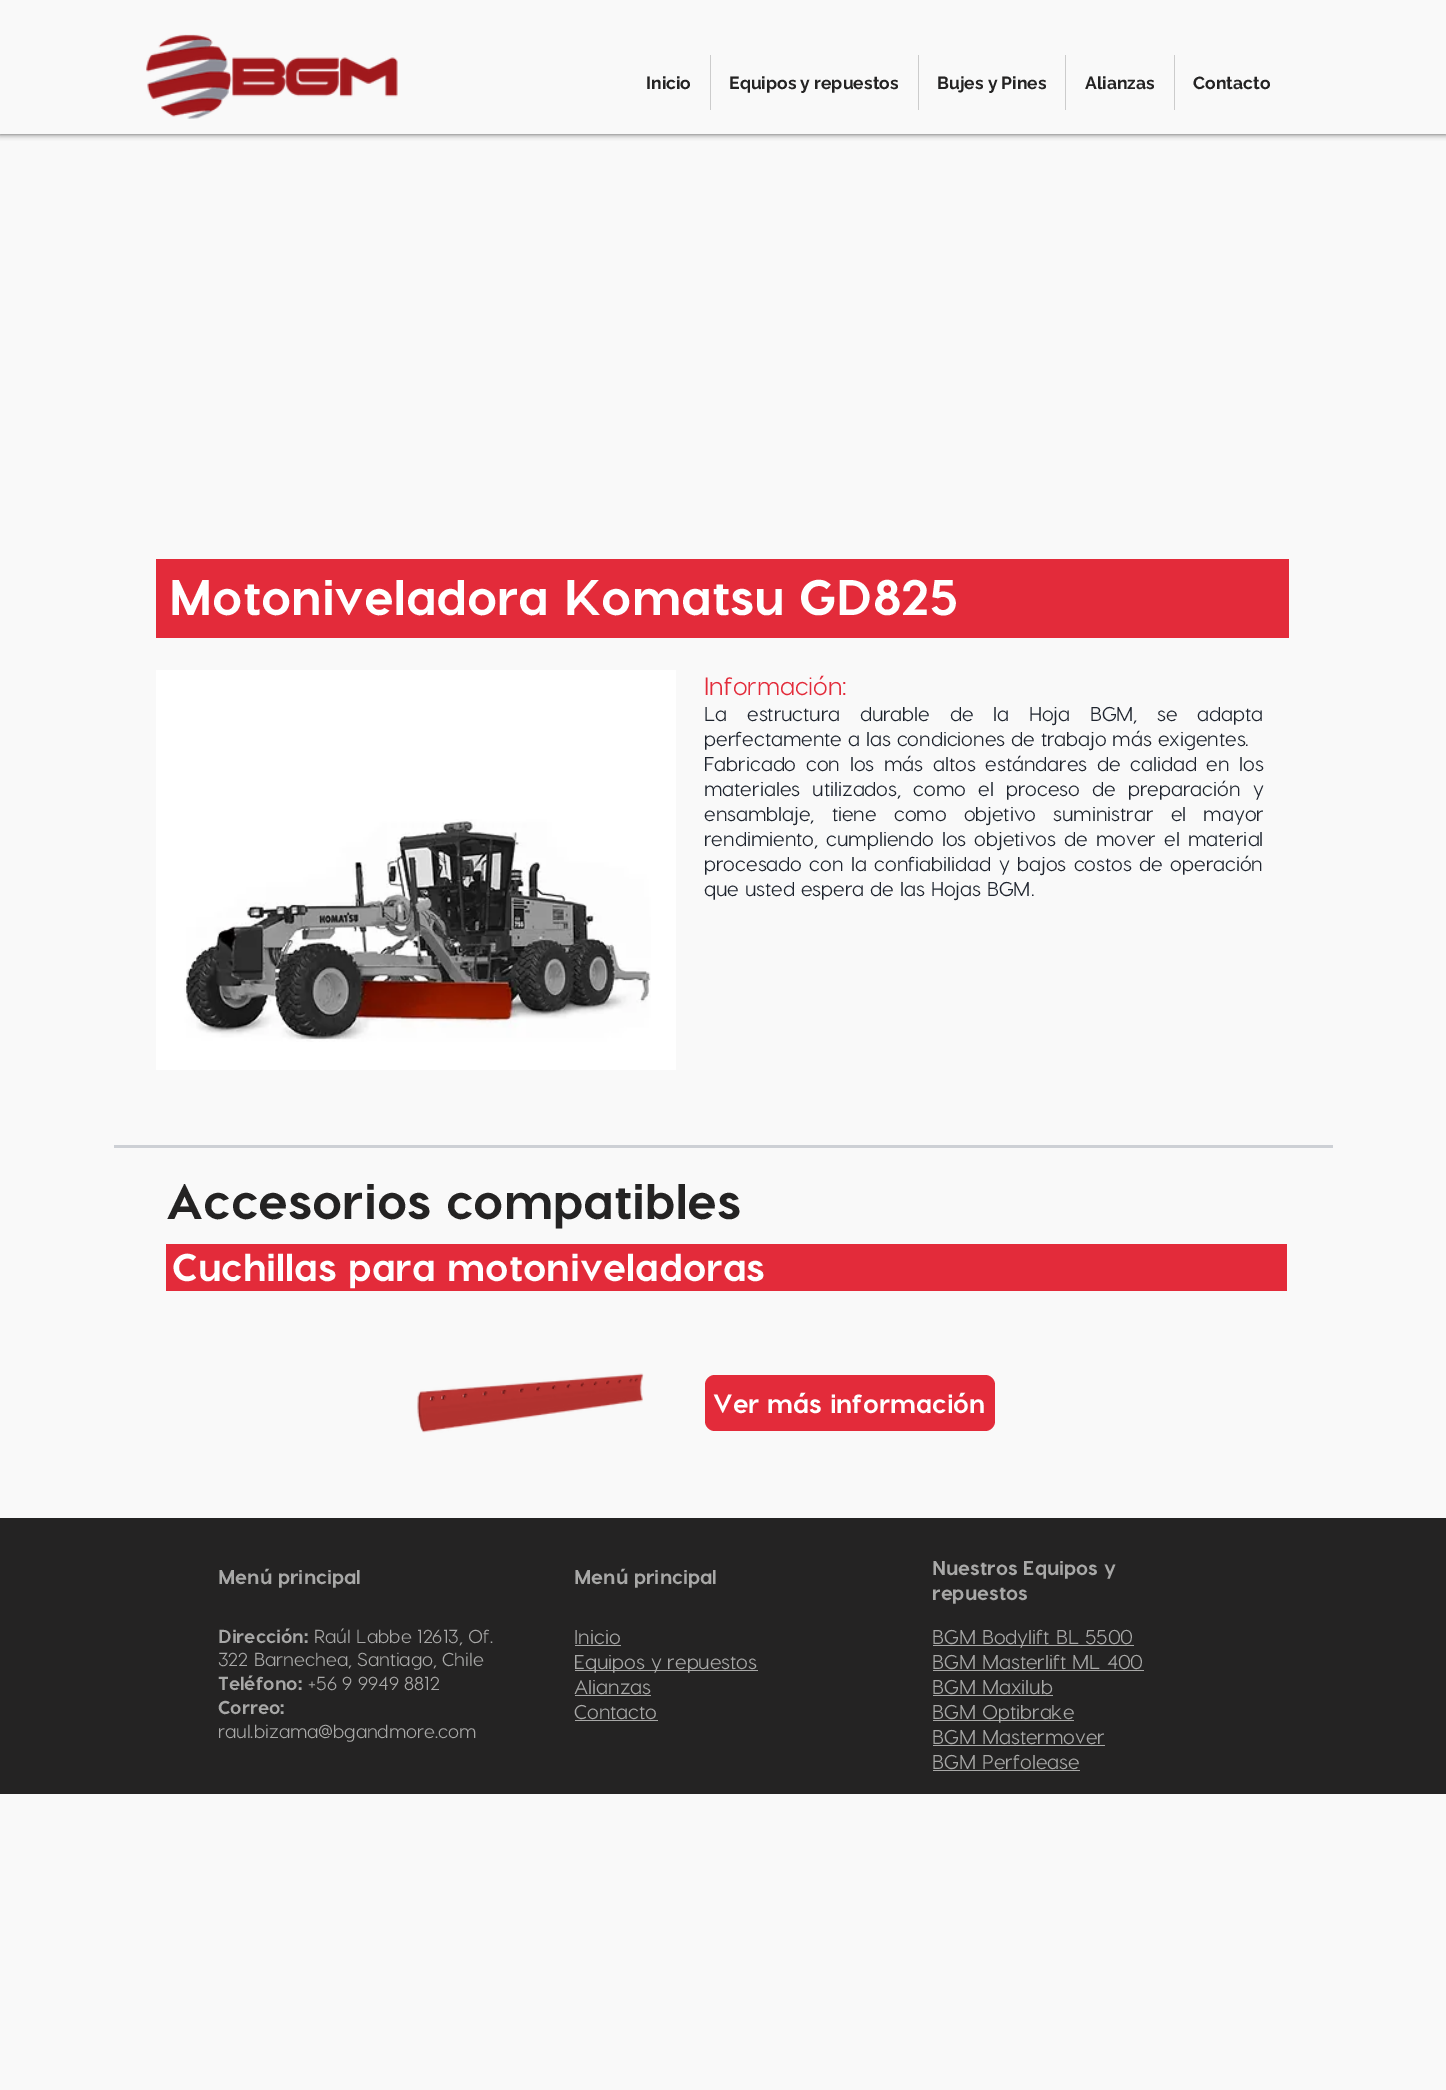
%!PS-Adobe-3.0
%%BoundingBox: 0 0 1446 2090
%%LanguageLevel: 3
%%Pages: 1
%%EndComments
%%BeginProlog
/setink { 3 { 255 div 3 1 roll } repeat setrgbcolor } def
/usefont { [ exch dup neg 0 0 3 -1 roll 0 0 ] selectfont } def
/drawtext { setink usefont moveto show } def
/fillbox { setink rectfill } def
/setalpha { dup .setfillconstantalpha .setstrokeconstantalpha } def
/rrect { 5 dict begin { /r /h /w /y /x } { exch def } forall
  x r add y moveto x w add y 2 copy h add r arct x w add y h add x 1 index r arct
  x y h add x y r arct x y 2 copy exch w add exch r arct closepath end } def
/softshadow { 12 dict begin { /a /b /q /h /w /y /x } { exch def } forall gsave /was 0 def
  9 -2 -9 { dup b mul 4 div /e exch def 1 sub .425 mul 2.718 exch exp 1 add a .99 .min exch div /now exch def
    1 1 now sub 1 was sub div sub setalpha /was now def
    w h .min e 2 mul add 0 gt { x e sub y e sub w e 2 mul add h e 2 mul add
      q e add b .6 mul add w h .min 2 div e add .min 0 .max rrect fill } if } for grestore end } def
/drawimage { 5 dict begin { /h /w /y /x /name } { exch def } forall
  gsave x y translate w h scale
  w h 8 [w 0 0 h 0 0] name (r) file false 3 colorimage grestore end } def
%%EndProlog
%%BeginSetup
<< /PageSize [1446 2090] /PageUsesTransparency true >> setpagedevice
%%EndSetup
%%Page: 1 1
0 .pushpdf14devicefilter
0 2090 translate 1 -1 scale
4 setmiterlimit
0 0 1446 2090 249 249 249 fillbox
0 0 0 setink
0 0 1446 134 0 3 0.7 softshadow
0 0 1446 134 249 249 249 fillbox
(assets/img1.rgb) 146 34 252 85 drawimage
(Inicio) 646 89 /Raleway-Bold 17.5 36 35 35 drawtext
710 55 1 55 204 204 204 fillbox
(Equipos y repuestos) 729 89 /Raleway-Bold 17.5 36 35 35 drawtext
918 55 1 55 204 204 204 fillbox
(Bujes y Pines) 937 89 /Raleway-Bold 17.5 36 35 35 drawtext
1065 55 1 55 204 204 204 fillbox
(Alianzas) 1085 89 /Raleway-Bold 17.5 36 35 35 drawtext
1174 55 1 55 204 204 204 fillbox
(Contacto) 1193 89 /Raleway-Bold 17.5 36 35 35 drawtext
156 559 1133 79 227 43 58 fillbox
(Motoniveladora Komatsu GD825) 169 615 /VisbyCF-ExtraBold 50 255 255 255 drawtext
156 670 520 400 255 255 255 fillbox
(assets/img2.rgb) 184 819 467 223 drawimage
(Información:) 704 695 /VisbyCF-Medium 25 227 43 58 drawtext
/VisbyCF-Medium 20 usefont
30 36 46 setink
704 721 moveto 13.75 0 32 (La estructura durable de la Hoja BGM, se adapta) widthshow
(perfectamente a las condiciones de trabajo más exigentes.) 704 746 /VisbyCF-Medium 20 30 36 46 drawtext
704 771 moveto 3.75 0 32 (Fabricado con los más altos estándares de calidad en los) widthshow
704 796 moveto 6.25 0 32 (materiales utilizados, como el proceso de preparación y) widthshow
704 821 moveto 11.25 0 32 (ensamblaje, tiene como objetivo suministrar el mayor) widthshow
704 846 moveto 2.25 0 32 (rendimiento, cumpliendo los objetivos de mover el material) widthshow
704 871 moveto 1.5 0 32 (procesado con la confiabilidad y bajos costos de operación) widthshow
(que usted espera de las Hojas BGM.) 704 896 /VisbyCF-Medium 20 30 36 46 drawtext
114 1145 1219 3 205 208 213 fillbox
(Accesorios compatibles) 166 1219 /VisbyCF-ExtraBold 50 36 35 35 drawtext
166 1244 1121 47 227 43 58 fillbox
(Cuchillas para motoniveladoras) 172 1281 /VisbyCF-ExtraBold 38.75 255 255 255 drawtext
(assets/img3.rgb) 417 1373 227 60 drawimage
227 43 58 setink
705 1375 290 56 10 rrect fill
(Ver más información) 713 1413 /VisbyCF-ExtraBold 26.25 255 255 255 drawtext
0 1518 1446 276 36 35 35 fillbox
(Menú principal) 218 1584 /VisbyCF-ExtraBold 20 168 168 167 drawtext
(Menú principal) 574 1584 /VisbyCF-ExtraBold 20 168 168 167 drawtext
(Nuestros Equipos y) 932 1575 /VisbyCF-ExtraBold 20 168 168 167 drawtext
(repuestos) 932 1600 /VisbyCF-ExtraBold 20 168 168 167 drawtext
(Dirección:) 218 1643 /VisbyCF-ExtraBold 18.75 168 168 167 drawtext
(Raúl Labbe 12613, Of.) 314 1643 /VisbyCF-Medium 18.75 168 168 167 drawtext
(322 Barnechea, Santiago, Chile) 218 1666 /VisbyCF-Medium 18.75 168 168 167 drawtext
(Teléfono:) 218 1690 /VisbyCF-ExtraBold 18.75 168 168 167 drawtext
(+56 9 9949 8812) 308 1690 /VisbyCF-Medium 18.75 168 168 167 drawtext
(Correo:) 218 1714 /VisbyCF-ExtraBold 18.75 168 168 167 drawtext
(raul.bizama@bgandmore.com) 218 1738 /VisbyCF-Medium 18.75 168 168 167 drawtext
(Inicio) 574 1644 /VisbyCF-Medium 20 168 168 167 drawtext
575 1645 46 1 168 168 167 fillbox
933 1645 201 1 168 168 167 fillbox
(BGM Bodylift BL 5500) 932 1644 /VisbyCF-Medium 20 168 168 167 drawtext
575 1670 183 1 168 168 167 fillbox
(Equipos y repuestos) 574 1669 /VisbyCF-Medium 20 168 168 167 drawtext
(BGM Masterlift ML 400) 932 1669 /VisbyCF-Medium 20 168 168 167 drawtext
933 1670 211 1 168 168 167 fillbox
(Alianzas) 574 1694 /VisbyCF-Medium 20 168 168 167 drawtext
575 1695 76 1 168 168 167 fillbox
(BGM Maxilub) 932 1694 /VisbyCF-Medium 20 168 168 167 drawtext
933 1695 120 1 168 168 167 fillbox
(Contacto) 574 1719 /VisbyCF-Medium 20 168 168 167 drawtext
575 1720 83 1 168 168 167 fillbox
933 1720 141 1 168 168 167 fillbox
(BGM Optibrake) 932 1719 /VisbyCF-Medium 20 168 168 167 drawtext
(BGM Mastermover) 932 1744 /VisbyCF-Medium 20 168 168 167 drawtext
933 1745 172 1 168 168 167 fillbox
(BGM Perfolease) 932 1769 /VisbyCF-Medium 20 168 168 167 drawtext
933 1770 147 1 168 168 167 fillbox
.poppdf14devicefilter showpage
%%EOF
